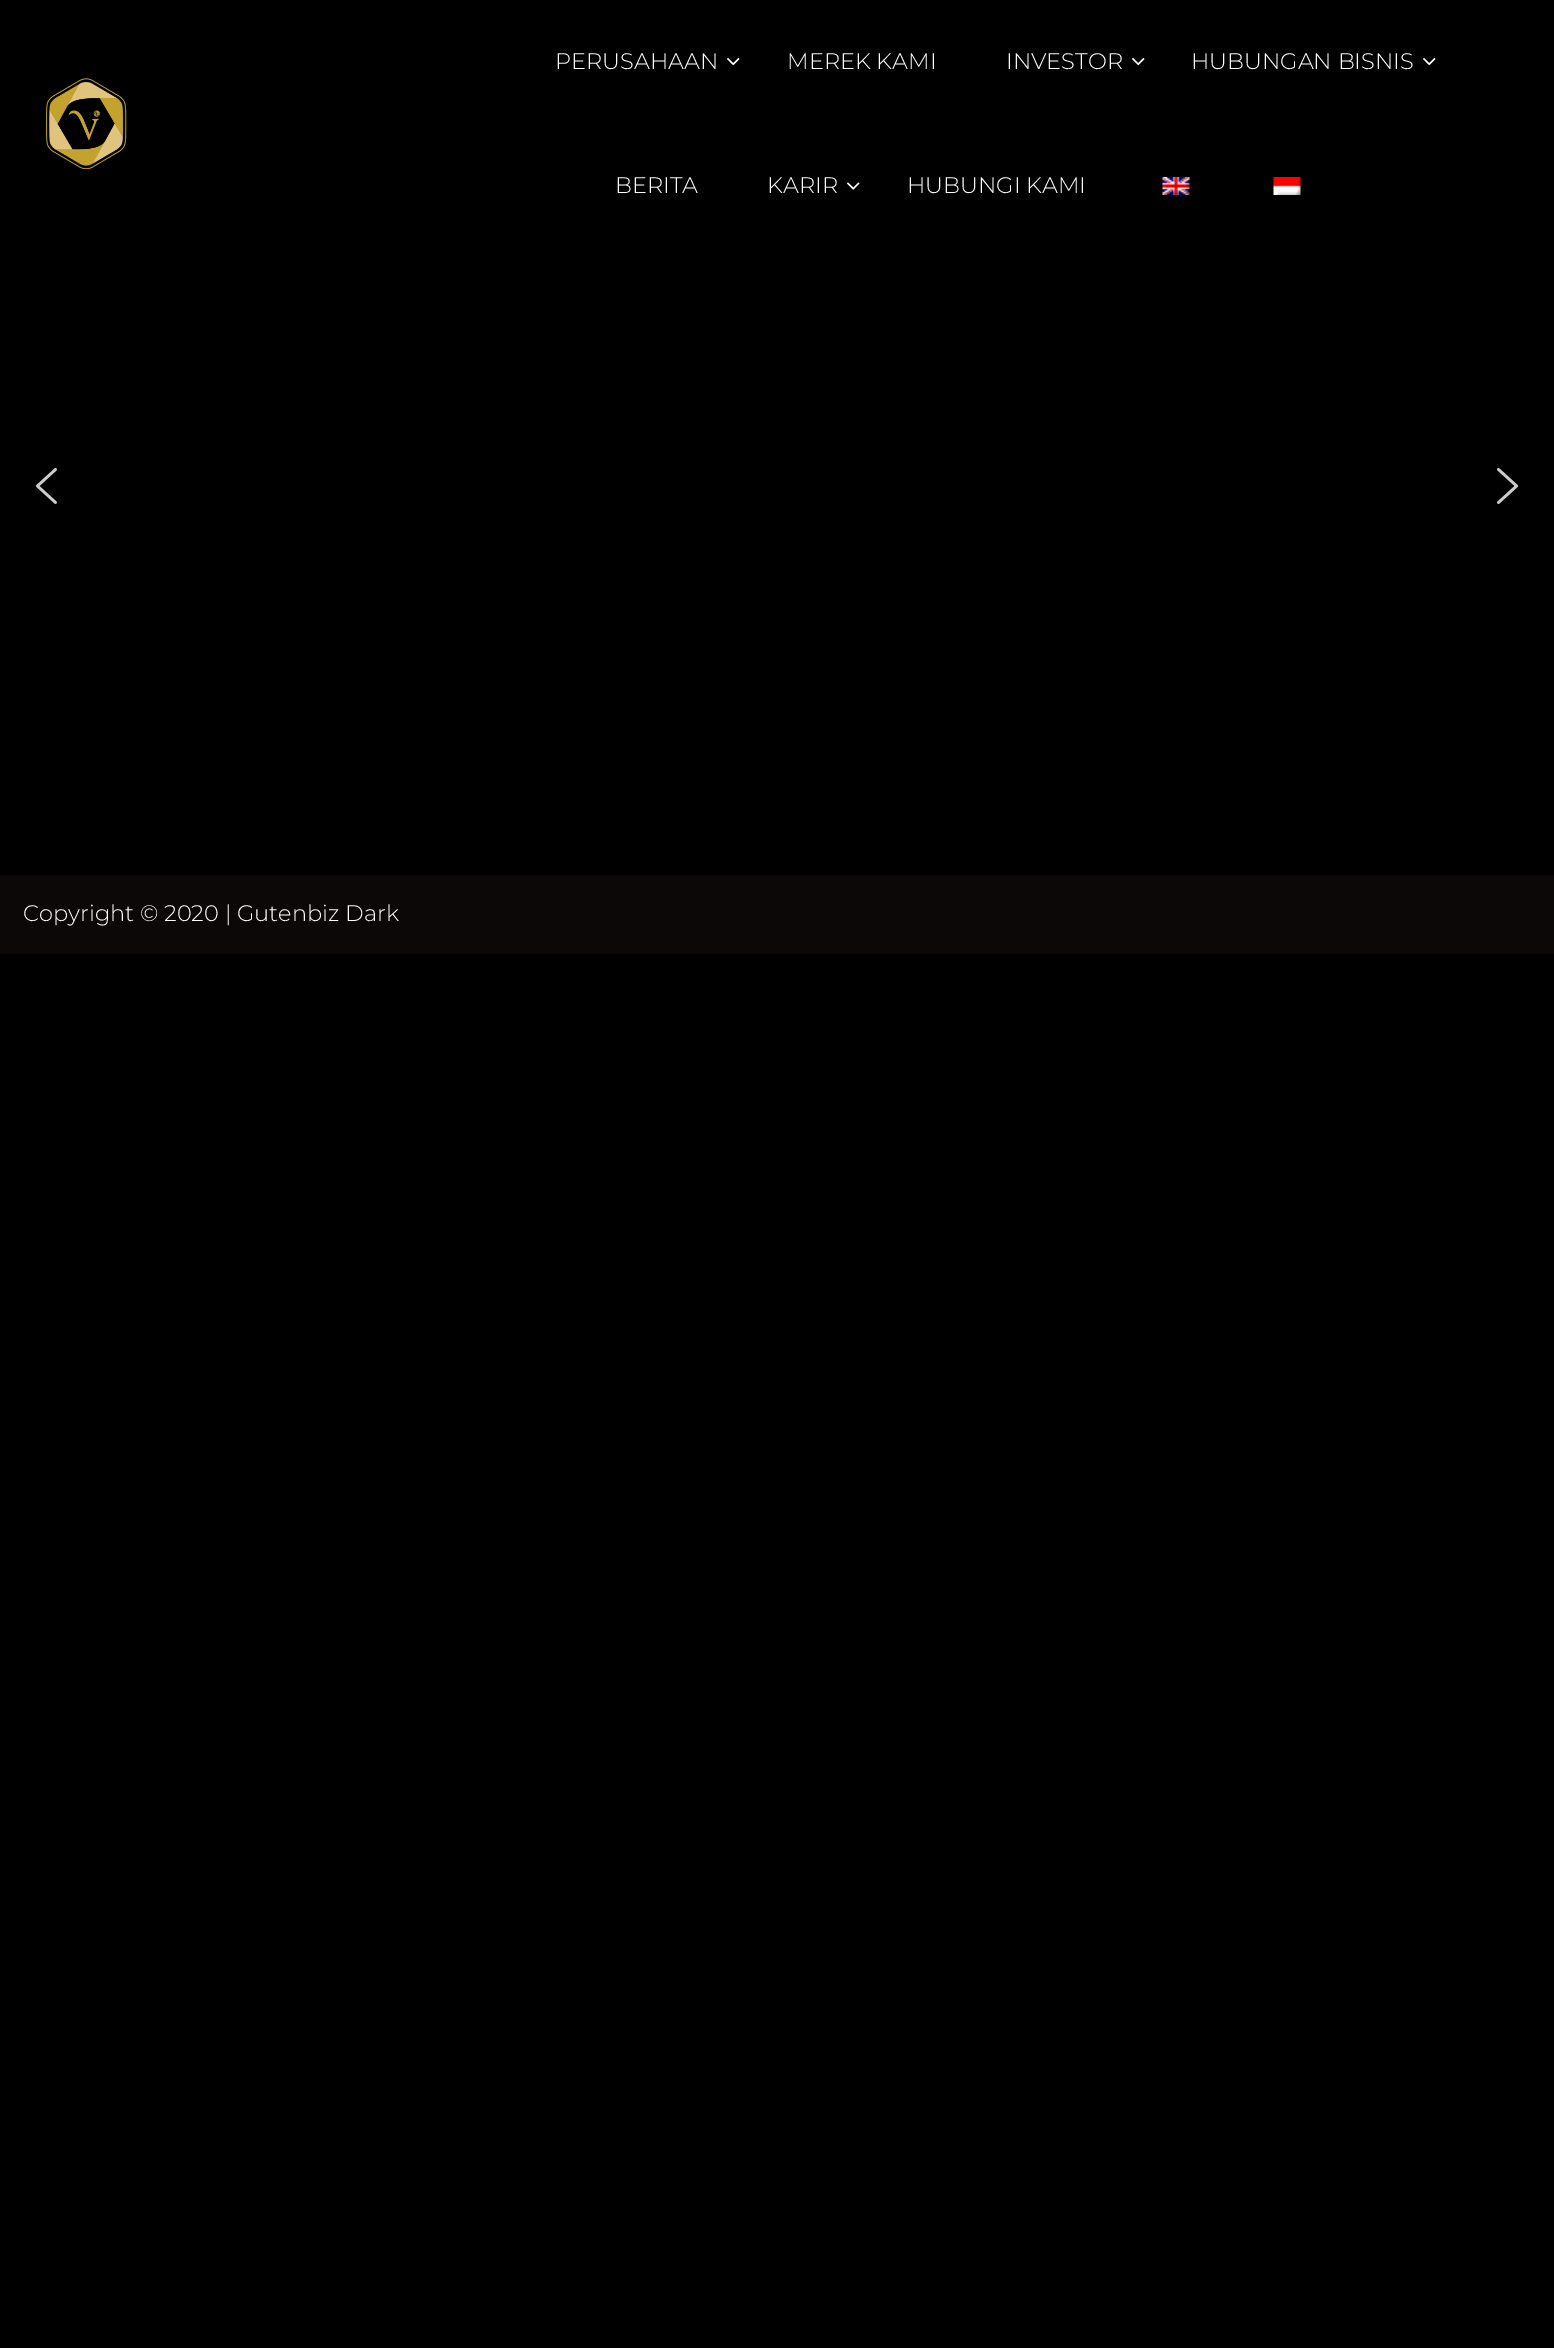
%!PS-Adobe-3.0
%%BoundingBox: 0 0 1554 2348
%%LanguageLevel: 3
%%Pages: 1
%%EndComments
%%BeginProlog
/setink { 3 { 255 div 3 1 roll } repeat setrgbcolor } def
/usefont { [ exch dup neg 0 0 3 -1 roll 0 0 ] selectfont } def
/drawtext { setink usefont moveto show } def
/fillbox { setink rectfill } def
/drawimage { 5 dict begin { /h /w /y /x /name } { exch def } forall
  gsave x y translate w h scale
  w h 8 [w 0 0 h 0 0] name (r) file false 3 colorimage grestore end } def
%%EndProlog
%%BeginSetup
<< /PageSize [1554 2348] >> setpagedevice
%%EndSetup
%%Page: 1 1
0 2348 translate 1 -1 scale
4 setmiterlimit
0 0 1554 2348 0 0 0 fillbox
(assets/img1.rgb) 46 78 81 91 drawimage
(PERUSAHAAN) 555 69 /Montserrat-Light 22.5 255 255 255 drawtext
(assets/img2.rgb) 727 58 13 8 drawimage
(MEREK KAMI) 787 69 /Montserrat-Light 22.5 255 255 255 drawtext
(INVESTOR) 1006 69 /Montserrat-Light 22.5 255 255 255 drawtext
(assets/img2.rgb) 1132 58 13 8 drawimage
(HUBUNGAN BISNIS) 1191 69 /Montserrat-Light 22.5 255 255 255 drawtext
(assets/img2.rgb) 1423 58 13 8 drawimage
(BERITA) 615 193 /Montserrat-Light 22.5 255 255 255 drawtext
(KARIR) 767 193 /Montserrat-Light 22.5 255 255 255 drawtext
(assets/img3.rgb) 847 182 13 8 drawimage
(HUBUNGI KAMI) 907 193 /Montserrat-Light 22.5 255 255 255 drawtext
(assets/img4.rgb) 1162 177 28 18 drawimage
(assets/img5.rgb) 1273 177 28 18 drawimage
(assets/img6.rgb) 36 468 21 36 drawimage
(assets/img7.rgb) 1497 468 21 36 drawimage
0 875 1554 79 12 8 8 fillbox
(Copyright © 2020 | Gutenbiz Dark) 23 921 /Montserrat-Light 22.5 255 255 255 drawtext
showpage
%%EOF
